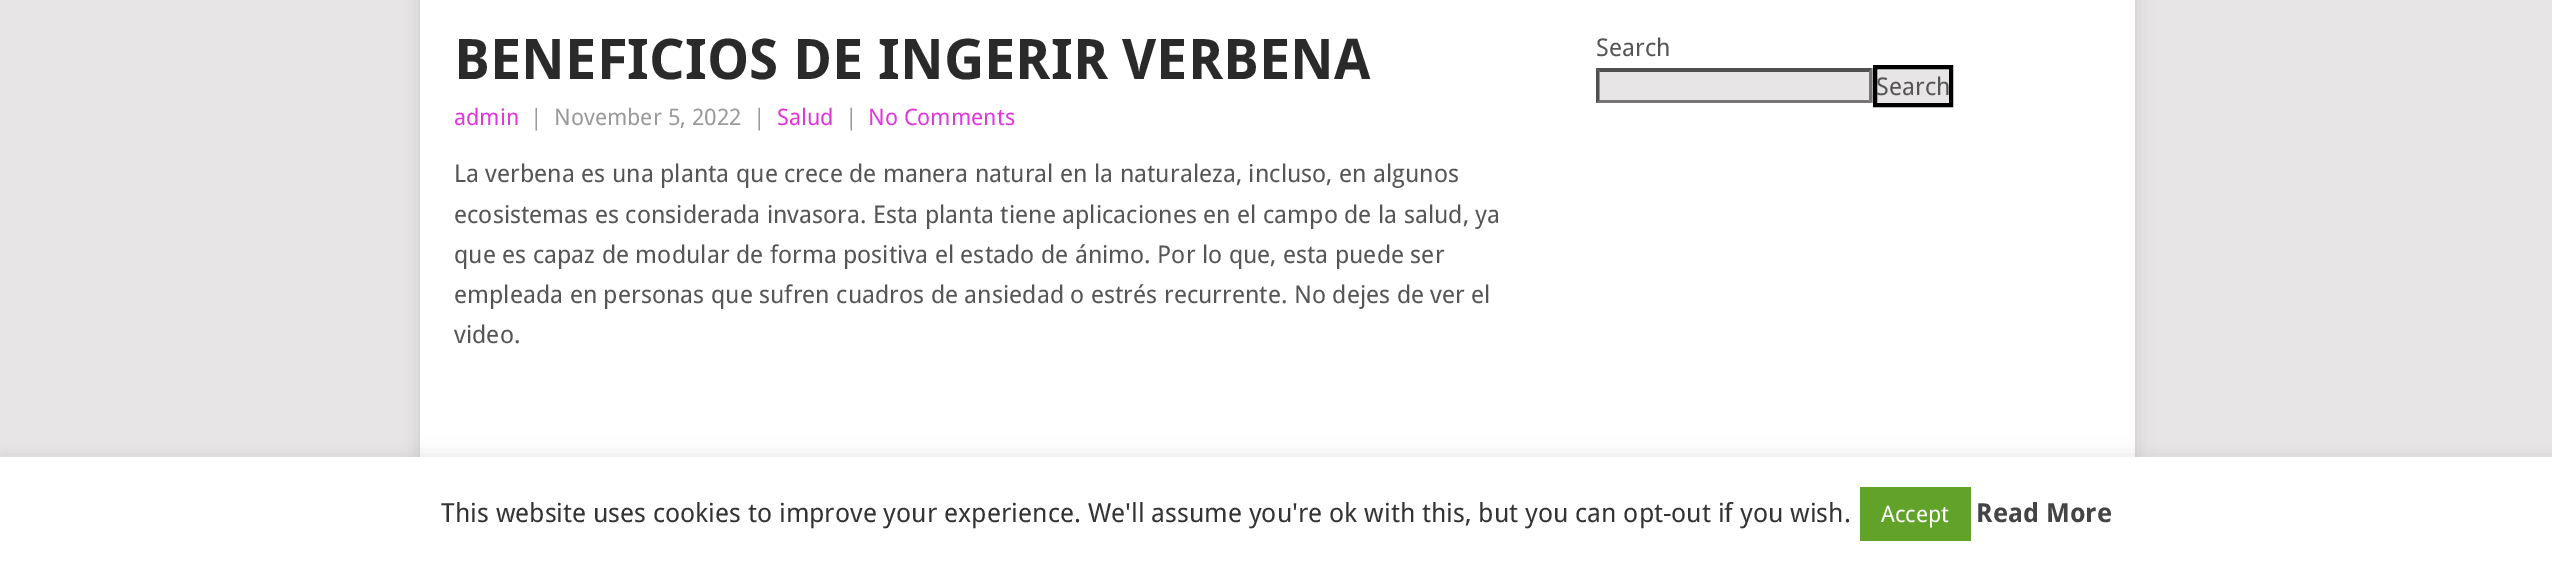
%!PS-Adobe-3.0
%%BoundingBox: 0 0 2552 561
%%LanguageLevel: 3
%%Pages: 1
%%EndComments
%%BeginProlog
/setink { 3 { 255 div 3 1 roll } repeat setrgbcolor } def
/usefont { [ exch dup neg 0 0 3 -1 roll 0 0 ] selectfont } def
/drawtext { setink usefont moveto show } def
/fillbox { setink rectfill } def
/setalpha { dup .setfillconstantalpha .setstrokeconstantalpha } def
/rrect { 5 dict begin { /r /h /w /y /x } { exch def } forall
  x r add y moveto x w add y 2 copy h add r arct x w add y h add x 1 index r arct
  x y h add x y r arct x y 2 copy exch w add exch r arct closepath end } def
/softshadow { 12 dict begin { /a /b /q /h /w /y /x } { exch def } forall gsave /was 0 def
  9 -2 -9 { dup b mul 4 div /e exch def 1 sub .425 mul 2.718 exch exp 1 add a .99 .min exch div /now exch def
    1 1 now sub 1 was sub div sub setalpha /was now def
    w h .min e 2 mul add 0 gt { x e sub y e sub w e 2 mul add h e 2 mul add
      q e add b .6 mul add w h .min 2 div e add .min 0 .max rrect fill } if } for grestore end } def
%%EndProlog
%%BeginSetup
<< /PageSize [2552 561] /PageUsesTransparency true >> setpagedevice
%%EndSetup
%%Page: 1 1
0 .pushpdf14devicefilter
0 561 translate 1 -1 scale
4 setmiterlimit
0 0 2552 561 231 229 230 fillbox
50 50 50 setink
420 -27 1715 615 0 9 0.17 softshadow
420 0 1715 457 255 255 255 fillbox
(BENEFICIOS DE INGERIR VERBENA) 454 79 /DroidSans-Bold 56 42 42 42 drawtext
(admin) 454 125 /DroidSans-Regular 22.75 226 54 221 drawtext
(|) 530 125 /DroidSans-Regular 22.75 153 153 153 drawtext
(November 5, 2022) 554 125 /DroidSans-Regular 22.75 153 153 153 drawtext
(|) 753 125 /DroidSans-Regular 22.75 153 153 153 drawtext
(Salud) 777 125 /DroidSans-Regular 22.75 226 54 221 drawtext
(|) 845 125 /DroidSans-Regular 22.75 153 153 153 drawtext
(No Comments) 868 125 /DroidSans-Regular 22.75 226 54 221 drawtext
(La verbena es una planta que crece de manera natural en la naturaleza, incluso, en algunos) 454 182 /DroidSans-Regular 24.5 85 85 85 drawtext
(ecosistemas es considerada invasora. Esta planta tiene aplicaciones en el campo de la salud, ya) 454 223 /DroidSans-Regular 24.5 85 85 85 drawtext
(que es capaz de modular de forma positiva el estado de ánimo. Por lo que, esta puede ser) 454 263 /DroidSans-Regular 24.5 85 85 85 drawtext
(empleada en personas que sufren cuadros de ansiedad o estrés recurrente. No dejes de ver el) 454 303 /DroidSans-Regular 24.5 85 85 85 drawtext
(video.) 454 343 /DroidSans-Regular 24.5 85 85 85 drawtext
(Search) 1596 56 /DroidSans-Regular 24.5 85 85 85 drawtext
1596 68 277 35 231 229 230 fillbox
79 79 79 setink
1596 68 moveto 1872 68 lineto 1869 72 lineto 1600 72 lineto closepath fill
118 118 118 setink
1872.5 68 moveto 1872.5 103 lineto 1869 100 lineto 1869 72 lineto closepath fill
1872 103 moveto 1596 103 lineto 1600 100 lineto 1869 100 lineto closepath fill
79 79 79 setink
1596 103 moveto 1596 68 lineto 1599.5 72 lineto 1599.5 100 lineto closepath fill
231 229 230 setink
1875 67 moveto 1951 67 lineto 1951 105 lineto 1875 105 lineto closepath gsave fill grestore
0 0 0 setink
4 setlinewidth
stroke
(Search) 1876 95 /DroidSans-Regular 24.5 85 85 85 drawtext
172 171 171 setink
0 455 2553 105 0 9 0.3 softshadow
0 457 2552 104 255 255 255 fillbox
(This website uses cookies to improve your experience. We'll assume you're ok with this, but you can opt-out if you wish.) 441 522 /DroidSans-Regular 26.25 51 51 51 drawtext
1860 487 111 54 97 162 41 fillbox
(Accept) 1881 522 /DroidSans-Regular 22.75 255 255 255 drawtext
(Read More) 1976 522 /DroidSans-Bold 26.25 68 68 68 drawtext
.poppdf14devicefilter showpage
%%EOF
